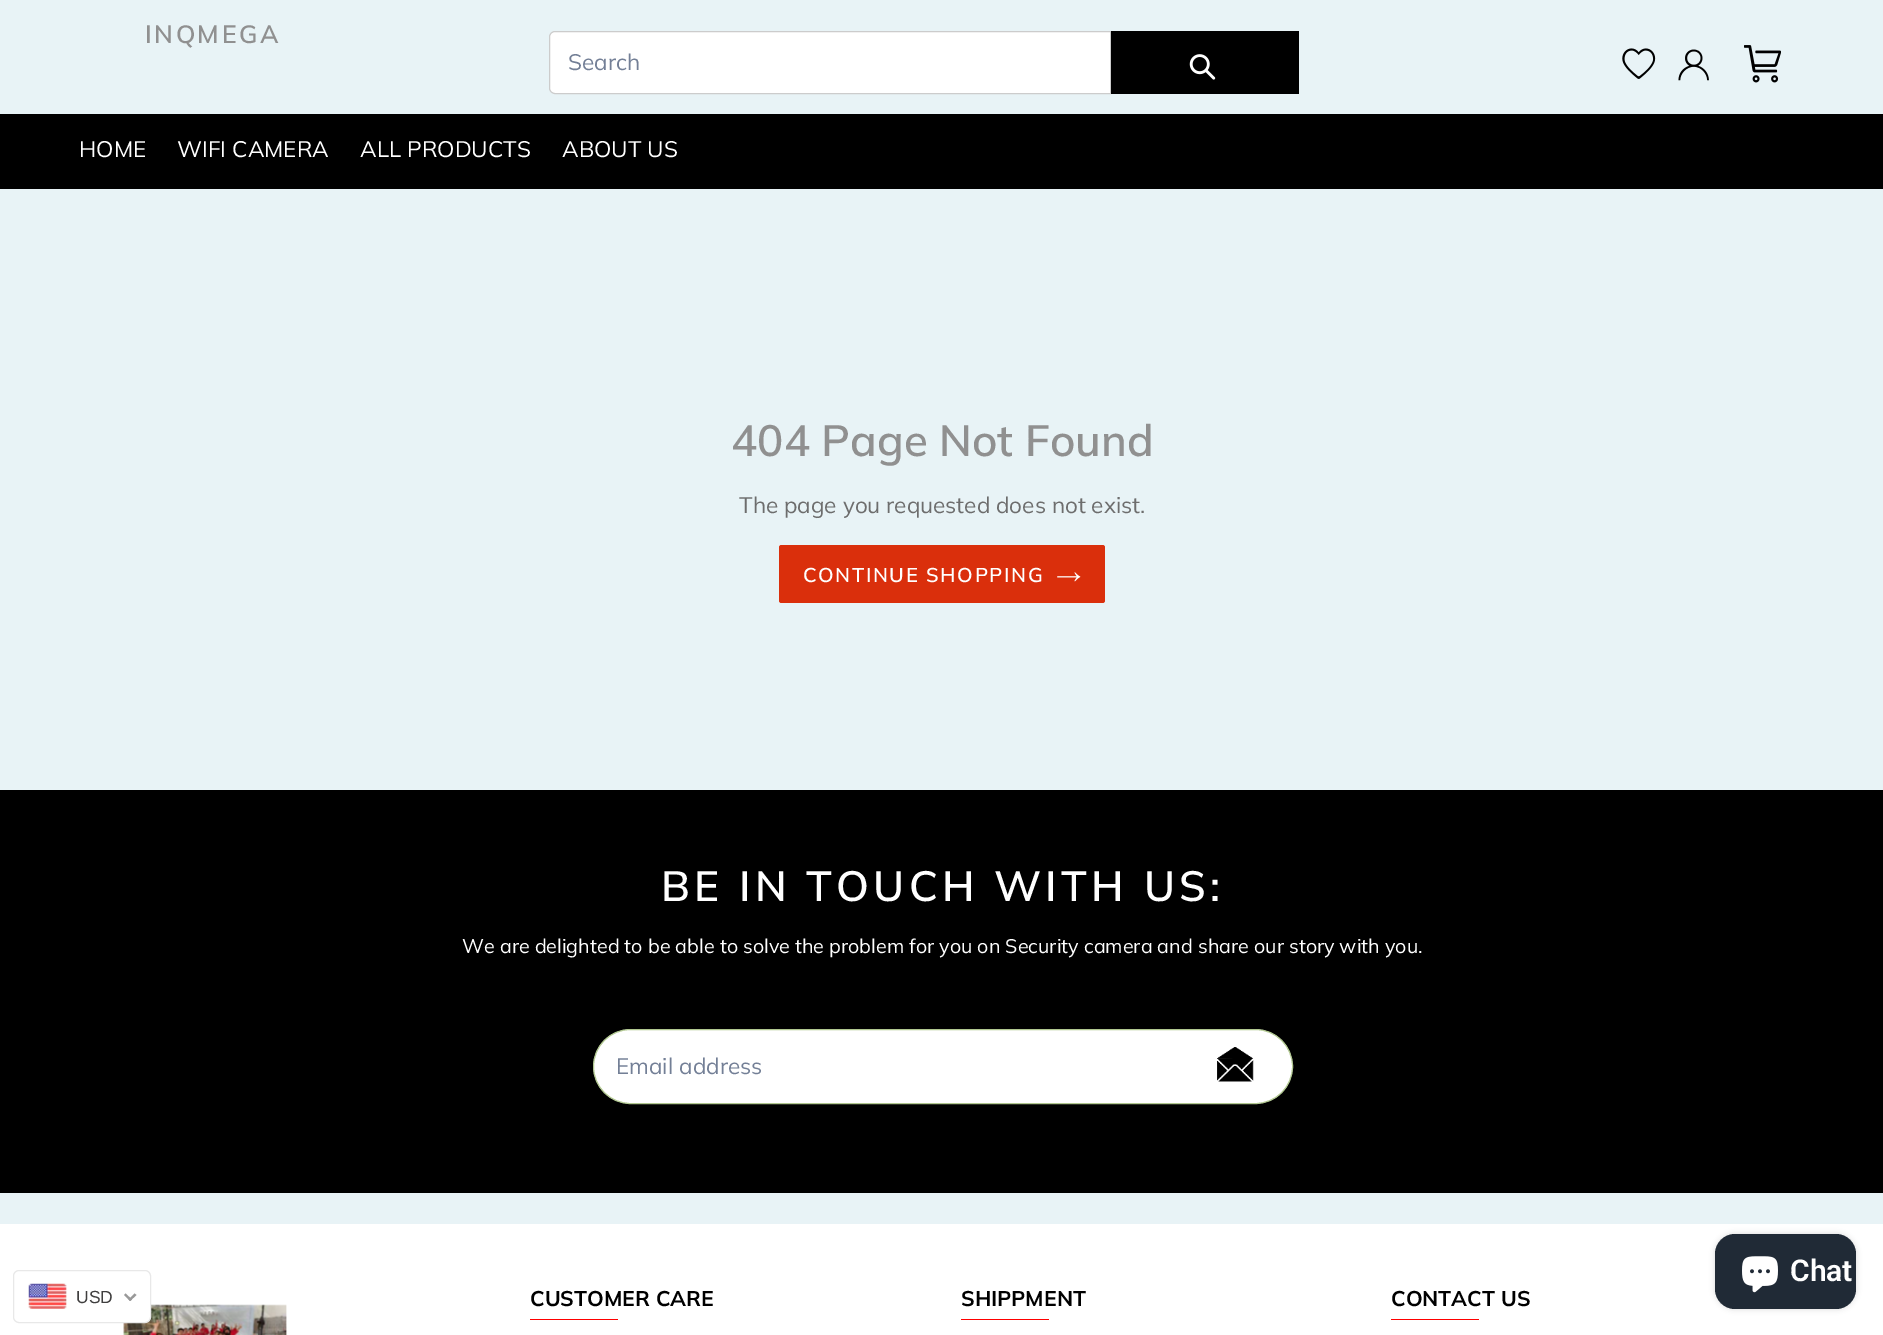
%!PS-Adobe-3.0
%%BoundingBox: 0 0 1883 1335
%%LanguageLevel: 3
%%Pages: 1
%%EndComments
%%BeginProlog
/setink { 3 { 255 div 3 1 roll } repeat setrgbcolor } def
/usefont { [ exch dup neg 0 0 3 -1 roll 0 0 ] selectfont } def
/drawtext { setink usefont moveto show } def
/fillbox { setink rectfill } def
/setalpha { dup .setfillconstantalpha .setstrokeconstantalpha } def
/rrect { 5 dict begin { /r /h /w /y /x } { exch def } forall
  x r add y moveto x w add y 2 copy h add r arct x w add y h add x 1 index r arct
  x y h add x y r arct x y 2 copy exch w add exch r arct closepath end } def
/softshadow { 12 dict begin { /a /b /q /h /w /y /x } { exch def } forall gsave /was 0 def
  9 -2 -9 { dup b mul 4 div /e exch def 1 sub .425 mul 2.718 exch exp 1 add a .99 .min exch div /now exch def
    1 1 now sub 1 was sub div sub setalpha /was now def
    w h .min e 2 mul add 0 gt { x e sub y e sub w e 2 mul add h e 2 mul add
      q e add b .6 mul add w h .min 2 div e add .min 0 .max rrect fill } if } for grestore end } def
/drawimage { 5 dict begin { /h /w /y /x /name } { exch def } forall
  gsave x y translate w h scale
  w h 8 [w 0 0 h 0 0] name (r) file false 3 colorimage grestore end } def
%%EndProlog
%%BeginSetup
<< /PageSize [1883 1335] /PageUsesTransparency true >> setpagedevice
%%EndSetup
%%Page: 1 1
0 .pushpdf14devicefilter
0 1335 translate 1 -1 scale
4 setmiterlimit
0 0 1883 1335 232 243 246 fillbox
/Muli-SemiBold 25 usefont
144 144 144 setink
145 43 moveto 2.5 0 (INQMEGA) ashow
255 255 255 setink
555 31.5 moveto 1110.5 31.5 lineto 1110.5 93.5 lineto 555 93.5 lineto 552 93.5 549.5 91 549.5 88 curveto 549.5 37 lineto 549.5 34 552 31.5 555 31.5 curveto closepath gsave fill grestore
204 204 204 setink
stroke
(Search) 568 70 /Muli-Regular 22.5 115 127 150 drawtext
1111 31 188 63 0 0 0 fillbox
(assets/img1.rgb) 1189 54 27 26 drawimage
(assets/img2.rgb) 1622 48 34 31 drawimage
(assets/img3.rgb) 1678 49 31 32 drawimage
(assets/img4.rgb) 1744 45 37 38 drawimage
0 114 1883 75 0 0 0 fillbox
(HOME) 79 157 /Muli-Regular 22.5 255 255 255 drawtext
(WIFI CAMERA) 177 157 /Muli-Regular 22.5 255 255 255 drawtext
(ALL PRODUCTS) 360 157 /Muli-Regular 22.5 255 255 255 drawtext
(ABOUT US) 562 157 /Muli-Regular 22.5 255 255 255 drawtext
(404 Page Not Found) 731 456 /Muli-SemiBold 43.75 144 144 144 drawtext
(The page you requested does not exist.) 739 513 /Muli-Regular 22.5 109 109 109 drawtext
218 47 12 setink
779 545 326 58 2.5 rrect fill
/Muli-SemiBold 20 usefont
255 255 255 setink
803 582 moveto 1.6 0 (CONTINUE SHOPPING) ashow
(assets/img5.rgb) 1057 572 24 10 drawimage
0 790 1883 403 0 0 0 fillbox
/Muli-SemiBold 42.25 usefont
255 255 255 setink
661 901 moveto 4.25 0 (BE IN TOUCH WITH US:) ashow
(We are delighted to be able to solve the problem for you on Security camera and share our story with you.) 462 953 /Muli-Regular 19.7 255 255 255 drawtext
593.5 1029.5 699 74 37 rrect gsave fill grestore
177 200 144 setink
stroke
(Email address) 616 1074 /Muli-Regular 22.5 115 127 150 drawtext
(assets/img6.rgb) 1217 1047 37 35 drawimage
0 1224 1883 111 255 255 255 fillbox
(CUSTOMER CARE) 530 1306 /Muli-Bold 21.25 0 0 0 drawtext
530 1319 88 1 254 0 0 fillbox
(SHIPPMENT) 961 1306 /Muli-Bold 21.25 0 0 0 drawtext
961 1319 88 1 254 0 0 fillbox
(CONTACT US) 1391 1306 /Muli-Bold 21.25 0 0 0 drawtext
1391 1319 88 1 254 0 0 fillbox
(assets/img7.rgb) 123 1304 164 31 drawimage
0 0 0 setink
1715 1234 141 75 20 3 0.15 softshadow
32 42 54 setink
1715 1234 141 75 20 rrect fill
(assets/img8.rgb) 1742 1256 36 37 drawimage
(Chat) 1790 1281 /Roboto-SemiBold 30 255 255 255 drawtext
13.5 1270.5 137 52 5.5 rrect gsave fill grestore
232 232 232 setink
stroke
(assets/img9.rgb) 28 1283 39 26 drawimage
(USD) 76 1303 /LiberationSans-Regular 17.5 64 63 63 drawtext
153 153 153 setink
134.5 1293.5 moveto 136.5 1295 lineto 130 1301 lineto 128.5 1299.5 lineto closepath fill
125.5 1293.5 moveto 132 1299.5 lineto 130 1301 lineto 124 1295 lineto closepath fill
.poppdf14devicefilter showpage
%%EOF
